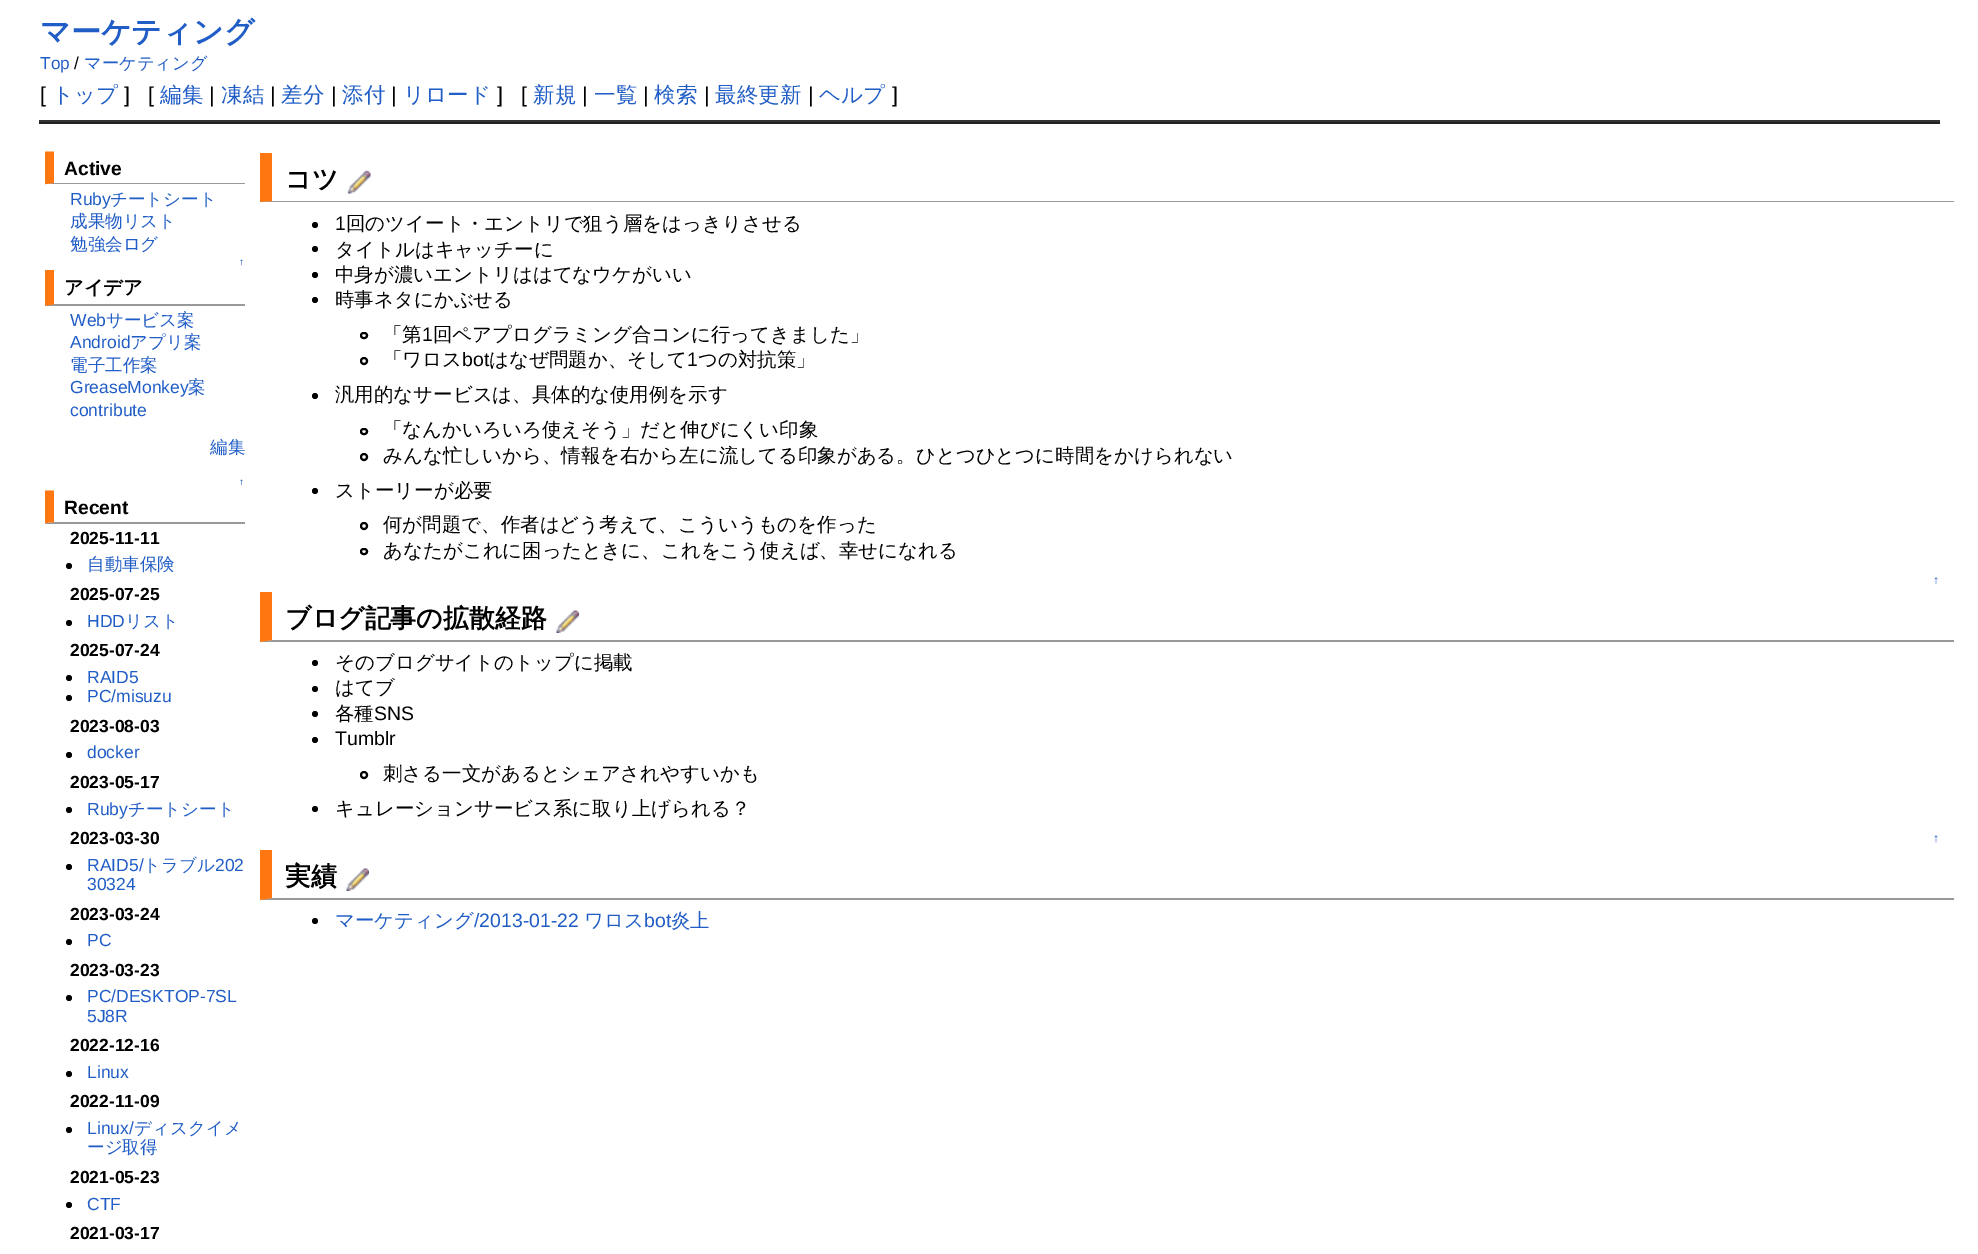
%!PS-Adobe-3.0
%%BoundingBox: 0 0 1978 1254
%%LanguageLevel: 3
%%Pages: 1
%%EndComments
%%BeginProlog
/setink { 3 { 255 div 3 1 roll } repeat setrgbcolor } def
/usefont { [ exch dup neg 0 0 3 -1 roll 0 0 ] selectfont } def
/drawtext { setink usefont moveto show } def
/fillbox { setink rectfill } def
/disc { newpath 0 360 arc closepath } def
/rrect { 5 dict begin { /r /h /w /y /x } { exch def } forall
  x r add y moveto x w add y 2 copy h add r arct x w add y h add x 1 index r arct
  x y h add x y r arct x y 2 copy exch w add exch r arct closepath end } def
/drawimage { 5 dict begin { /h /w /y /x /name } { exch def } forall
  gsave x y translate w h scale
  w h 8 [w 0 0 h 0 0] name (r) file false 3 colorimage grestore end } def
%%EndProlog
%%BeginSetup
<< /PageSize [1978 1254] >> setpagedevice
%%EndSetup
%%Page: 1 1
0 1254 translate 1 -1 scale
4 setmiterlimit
0 0 1978 1254 255 255 255 fillbox
(マーケティング) 40 42 /WenQuanYiZenHei-Bold 30 33 93 198 drawtext
(Top) 40 69 /LiberationSans-Regular 17.25 33 93 198 drawtext
(/) 74 69 /LiberationSans-Regular 17.25 0 0 0 drawtext
(マーケティング) 84 69 /WenQuanYiZenHei-Medium 17.25 33 93 198 drawtext
([) 40 102 /LiberationSans-Regular 21.5 0 0 0 drawtext
(トップ) 52 102 /WenQuanYiZenHei-Medium 21.5 33 93 198 drawtext
(]   [) 124 102 /LiberationSans-Regular 21.5 0 0 0 drawtext
(編集) 160 102 /WenQuanYiZenHei-Medium 21.5 33 93 198 drawtext
(|) 209 102 /LiberationSans-Regular 21.5 0 0 0 drawtext
(凍結) 221 102 /WenQuanYiZenHei-Medium 21.5 33 93 198 drawtext
(|) 270 102 /LiberationSans-Regular 21.5 0 0 0 drawtext
(差分) 281 102 /WenQuanYiZenHei-Medium 21.5 33 93 198 drawtext
(|) 331 102 /LiberationSans-Regular 21.5 0 0 0 drawtext
(添付) 342 102 /WenQuanYiZenHei-Medium 21.5 33 93 198 drawtext
(|) 391 102 /LiberationSans-Regular 21.5 0 0 0 drawtext
(リロード) 403 102 /WenQuanYiZenHei-Medium 21.5 33 93 198 drawtext
(]   [) 497 102 /LiberationSans-Regular 21.5 0 0 0 drawtext
(新規) 533 102 /WenQuanYiZenHei-Medium 21.5 33 93 198 drawtext
(|) 582 102 /LiberationSans-Regular 21.5 0 0 0 drawtext
(一覧) 594 102 /WenQuanYiZenHei-Medium 21.5 33 93 198 drawtext
(|) 643 102 /LiberationSans-Regular 21.5 0 0 0 drawtext
(検索) 654 102 /WenQuanYiZenHei-Medium 21.5 33 93 198 drawtext
(|) 704 102 /LiberationSans-Regular 21.5 0 0 0 drawtext
(最終更新) 715 102 /WenQuanYiZenHei-Medium 21.5 33 93 198 drawtext
(|) 808 102 /LiberationSans-Regular 21.5 0 0 0 drawtext
(ヘルプ) 819 102 /WenQuanYiZenHei-Medium 21.5 33 93 198 drawtext
(]) 892 102 /LiberationSans-Regular 21.5 0 0 0 drawtext
39 120 1901 2 51 51 51 fillbox
39 122 1901 2 34 34 34 fillbox
gsave
45 134 200 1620 rectclip
153 153 153 setink
260 184 moveto 42 184 lineto 54 183 lineto 260 183 lineto closepath fill
255 119 17 setink
42 184.5 moveto 42 151.5 lineto 54 151.5 lineto 54 183 lineto closepath fill
grestore
(Active) 64 175 /LiberationSans-Bold 19.25 0 0 0 drawtext
(Ruby) 70 205 /LiberationSans-Regular 17.5 33 93 198 drawtext
(チートシート) 110 205 /WenQuanYiZenHei-Medium 17.5 33 93 198 drawtext
(成果物リスト) 70 227 /WenQuanYiZenHei-Medium 17.5 33 93 198 drawtext
(勉強会ログ) 70 250 /WenQuanYiZenHei-Medium 17.5 33 93 198 drawtext
(↑) 239 265 /LiberationSans-Regular 10 33 93 198 drawtext
gsave
45 134 200 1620 rectclip
153 153 153 setink
260 306 moveto 42 306 lineto 54 304 lineto 260 304 lineto closepath fill
255 119 17 setink
42 306 moveto 42 270 lineto 54 270 lineto 54 304.5 lineto closepath fill
grestore
(アイデア) 64 294 /WenQuanYiZenHei-Bold 19.25 0 0 0 drawtext
(Web) 70 326 /LiberationSans-Regular 17.5 33 93 198 drawtext
(サービス案) 106 326 /WenQuanYiZenHei-Medium 17.5 33 93 198 drawtext
(Android) 70 348 /LiberationSans-Regular 17.5 33 93 198 drawtext
(アプリ案) 130 348 /WenQuanYiZenHei-Medium 17.5 33 93 198 drawtext
(電子工作案) 70 371 /WenQuanYiZenHei-Medium 17.5 33 93 198 drawtext
(GreaseMonkey) 70 393 /LiberationSans-Regular 17.5 33 93 198 drawtext
(案) 188 393 /WenQuanYiZenHei-Medium 17.5 33 93 198 drawtext
(contribute) 70 416 /LiberationSans-Regular 17.5 33 93 198 drawtext
(編集) 210 453 /WenQuanYiZenHei-Medium 17.5 33 93 198 drawtext
(↑) 239 485 /LiberationSans-Regular 10 33 93 198 drawtext
gsave
45 134 200 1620 rectclip
153 153 153 setink
260 524 moveto 42 524 lineto 54 522 lineto 260 522 lineto closepath fill
255 119 17 setink
42 523.5 moveto 42 490.5 lineto 54 490.5 lineto 54 522 lineto closepath fill
grestore
(Recent) 64 514 /LiberationSans-Bold 19.25 0 0 0 drawtext
(2025-11-11) 70 544 /LiberationSans-Bold 17.5 0 0 0 drawtext
69 566 3 disc fill
(自動車保険) 87 570 /WenQuanYiZenHei-Medium 17.5 33 93 198 drawtext
(2025-07-25) 70 600 /LiberationSans-Bold 17.5 0 0 0 drawtext
69 623 3 disc fill
(HDD) 87 627 /LiberationSans-Regular 17.5 33 93 198 drawtext
(リスト) 125 627 /WenQuanYiZenHei-Medium 17.5 33 93 198 drawtext
(2025-07-24) 70 656 /LiberationSans-Bold 17.5 0 0 0 drawtext
69 678 3 disc fill
(RAID5) 87 683 /LiberationSans-Regular 17.5 33 93 198 drawtext
0 0 0 setink
69 698 3 disc fill
(PC/misuzu) 87 702 /LiberationSans-Regular 17.5 33 93 198 drawtext
(2023-08-03) 70 732 /LiberationSans-Bold 17.5 0 0 0 drawtext
69 755 3 disc fill
(docker) 87 758 /LiberationSans-Regular 17.5 33 93 198 drawtext
(2023-05-17) 70 788 /LiberationSans-Bold 17.5 0 0 0 drawtext
69 810 3 disc fill
(Ruby) 87 815 /LiberationSans-Regular 17.5 33 93 198 drawtext
(チートシート) 128 815 /WenQuanYiZenHei-Medium 17.5 33 93 198 drawtext
(2023-03-30) 70 844 /LiberationSans-Bold 17.5 0 0 0 drawtext
69 867 3 disc fill
(RAID5/) 87 871 /LiberationSans-Regular 17.5 33 93 198 drawtext
(トラブル) 143 871 /WenQuanYiZenHei-Medium 17.5 33 93 198 drawtext
(202) 215 871 /LiberationSans-Regular 17.5 33 93 198 drawtext
(30324) 87 890 /LiberationSans-Regular 17.5 33 93 198 drawtext
(2023-03-24) 70 920 /LiberationSans-Bold 17.5 0 0 0 drawtext
69 942 3 disc fill
(PC) 87 946 /LiberationSans-Regular 17.5 33 93 198 drawtext
(2023-03-23) 70 976 /LiberationSans-Bold 17.5 0 0 0 drawtext
69 998 3 disc fill
(PC/DESKTOP-7SL) 87 1002 /LiberationSans-Regular 17.5 33 93 198 drawtext
(5J8R) 87 1022 /LiberationSans-Regular 17.5 33 93 198 drawtext
(2022-12-16) 70 1051 /LiberationSans-Bold 17.5 0 0 0 drawtext
69 1074 3 disc fill
(Linux) 87 1078 /LiberationSans-Regular 17.5 33 93 198 drawtext
(2022-11-09) 70 1107 /LiberationSans-Bold 17.5 0 0 0 drawtext
69 1130 3 disc fill
(Linux/) 87 1134 /LiberationSans-Regular 17.5 33 93 198 drawtext
(ディスクイメ) 134 1134 /WenQuanYiZenHei-Medium 17.5 33 93 198 drawtext
(ージ取得) 87 1153 /WenQuanYiZenHei-Medium 17.5 33 93 198 drawtext
(2021-05-23) 70 1183 /LiberationSans-Bold 17.5 0 0 0 drawtext
69 1205 3 disc fill
(CTF) 87 1210 /LiberationSans-Regular 17.5 33 93 198 drawtext
(2021-03-17) 70 1239 /LiberationSans-Bold 17.5 0 0 0 drawtext
153 153 153 setink
1954 202 moveto 260 202 lineto 272 201 lineto 1954 201 lineto closepath fill
255 119 17 setink
260 202 moveto 260 153 lineto 272 153 lineto 272 201 lineto closepath fill
(コツ) 285 188 /WenQuanYiZenHei-Bold 25.9 0 0 0 drawtext
(assets/img1.rgb) 347 170 24 24 drawimage
315 225 3 disc fill
(1) 335 230 /LiberationSans-Regular 19.45 0 0 0 drawtext
(回のツイート・エントリで狙う層をはっきりさせる) 346 230 /WenQuanYiZenHei-Medium 19.45 0 0 0 drawtext
315 249 3 disc fill
(タイトルはキャッチーに) 335 256 /WenQuanYiZenHei-Medium 19.45 0 0 0 drawtext
315 275 3 disc fill
(中身が濃いエントリははてなウケがいい) 335 281 /WenQuanYiZenHei-Medium 19.45 0 0 0 drawtext
315 300 3 disc fill
(時事ネタにかぶせる) 335 306 /WenQuanYiZenHei-Medium 19.45 0 0 0 drawtext
2 setlinewidth
361 333 6 5 2.5 rrect stroke
(「第) 383 341 /WenQuanYiZenHei-Medium 19.45 0 0 0 drawtext
(1) 422 341 /LiberationSans-Regular 19.45 0 0 0 drawtext
(回ペアプログラミング合コンに行ってきました」) 433 341 /WenQuanYiZenHei-Medium 19.45 0 0 0 drawtext
364 361 3 disc stroke
(「ワロス) 383 366 /WenQuanYiZenHei-Medium 19.45 0 0 0 drawtext
(bot) 462 366 /LiberationSans-Regular 19.45 0 0 0 drawtext
(はなぜ問題か、そして) 489 366 /WenQuanYiZenHei-Medium 19.45 0 0 0 drawtext
(1) 687 366 /LiberationSans-Regular 19.45 0 0 0 drawtext
(つの対抗策」) 698 366 /WenQuanYiZenHei-Medium 19.45 0 0 0 drawtext
315 396 3 disc fill
(汎用的なサービスは、具体的な使用例を示す) 335 401 /WenQuanYiZenHei-Medium 19.45 0 0 0 drawtext
361 429 6 5 2.5 rrect stroke
(「なんかいろいろ使えそう」だと伸びにくい印象) 383 436 /WenQuanYiZenHei-Medium 19.45 0 0 0 drawtext
364 457 3 disc stroke
(みんな忙しいから、情報を右から左に流してる印象がある。ひとつひとつに時間をかけられない) 383 462 /WenQuanYiZenHei-Medium 19.45 0 0 0 drawtext
315 491 3 disc fill
(ストーリーが必要) 335 497 /WenQuanYiZenHei-Medium 19.45 0 0 0 drawtext
364 526 3 disc stroke
(何が問題で、作者はどう考えて、こういうものを作った) 383 531 /WenQuanYiZenHei-Medium 19.45 0 0 0 drawtext
361 549 6 5 2.5 rrect stroke
(あなたがこれに困ったときに、これをこう使えば、幸せになれる) 383 557 /WenQuanYiZenHei-Medium 19.45 0 0 0 drawtext
(↑) 1933 584 /LiberationSans-Regular 12 33 93 198 drawtext
153 153 153 setink
1954 642 moveto 260 642 lineto 272 640 lineto 1954 640 lineto closepath fill
255 119 17 setink
260 642 moveto 260 592 lineto 272 592 lineto 272 640 lineto closepath fill
(ブログ記事の拡散経路) 285 627 /WenQuanYiZenHei-Bold 25.9 0 0 0 drawtext
(assets/img2.rgb) 556 610 23 23 drawimage
315 663 3 disc fill
(そのブログサイトのトップに掲載) 335 669 /WenQuanYiZenHei-Medium 19.45 0 0 0 drawtext
315 689 3 disc fill
(はてブ) 335 694 /WenQuanYiZenHei-Medium 19.45 0 0 0 drawtext
315 714 3 disc fill
(各種) 335 720 /WenQuanYiZenHei-Medium 19.45 0 0 0 drawtext
(SNS) 374 720 /LiberationSans-Regular 19.45 0 0 0 drawtext
315 740 3 disc fill
(Tumblr) 335 745 /LiberationSans-Regular 19.45 0 0 0 drawtext
364 775 3 disc stroke
(刺さる一文があるとシェアされやすいかも) 383 780 /WenQuanYiZenHei-Medium 19.45 0 0 0 drawtext
315 809 3 disc fill
(キュレーションサービス系に取り上げられる？) 335 815 /WenQuanYiZenHei-Medium 19.45 0 0 0 drawtext
(↑) 1933 842 /LiberationSans-Regular 12 33 93 198 drawtext
153 153 153 setink
1954 900 moveto 260 900 lineto 272 898 lineto 1954 898 lineto closepath fill
255 119 17 setink
260 900 moveto 260 850 lineto 272 850 lineto 272 898 lineto closepath fill
(実績) 285 885 /WenQuanYiZenHei-Bold 25.9 0 0 0 drawtext
(assets/img3.rgb) 346 868 23 23 drawimage
315 921 3 disc fill
(マーケティング) 335 927 /WenQuanYiZenHei-Medium 19.45 33 93 198 drawtext
(/2013-01-22) 474 927 /LiberationSans-Regular 19.45 33 93 198 drawtext
(ワロス) 584 927 /WenQuanYiZenHei-Medium 19.45 33 93 198 drawtext
(bot) 644 927 /LiberationSans-Regular 19.45 33 93 198 drawtext
(炎上) 671 927 /WenQuanYiZenHei-Medium 19.45 33 93 198 drawtext
showpage
%%EOF
